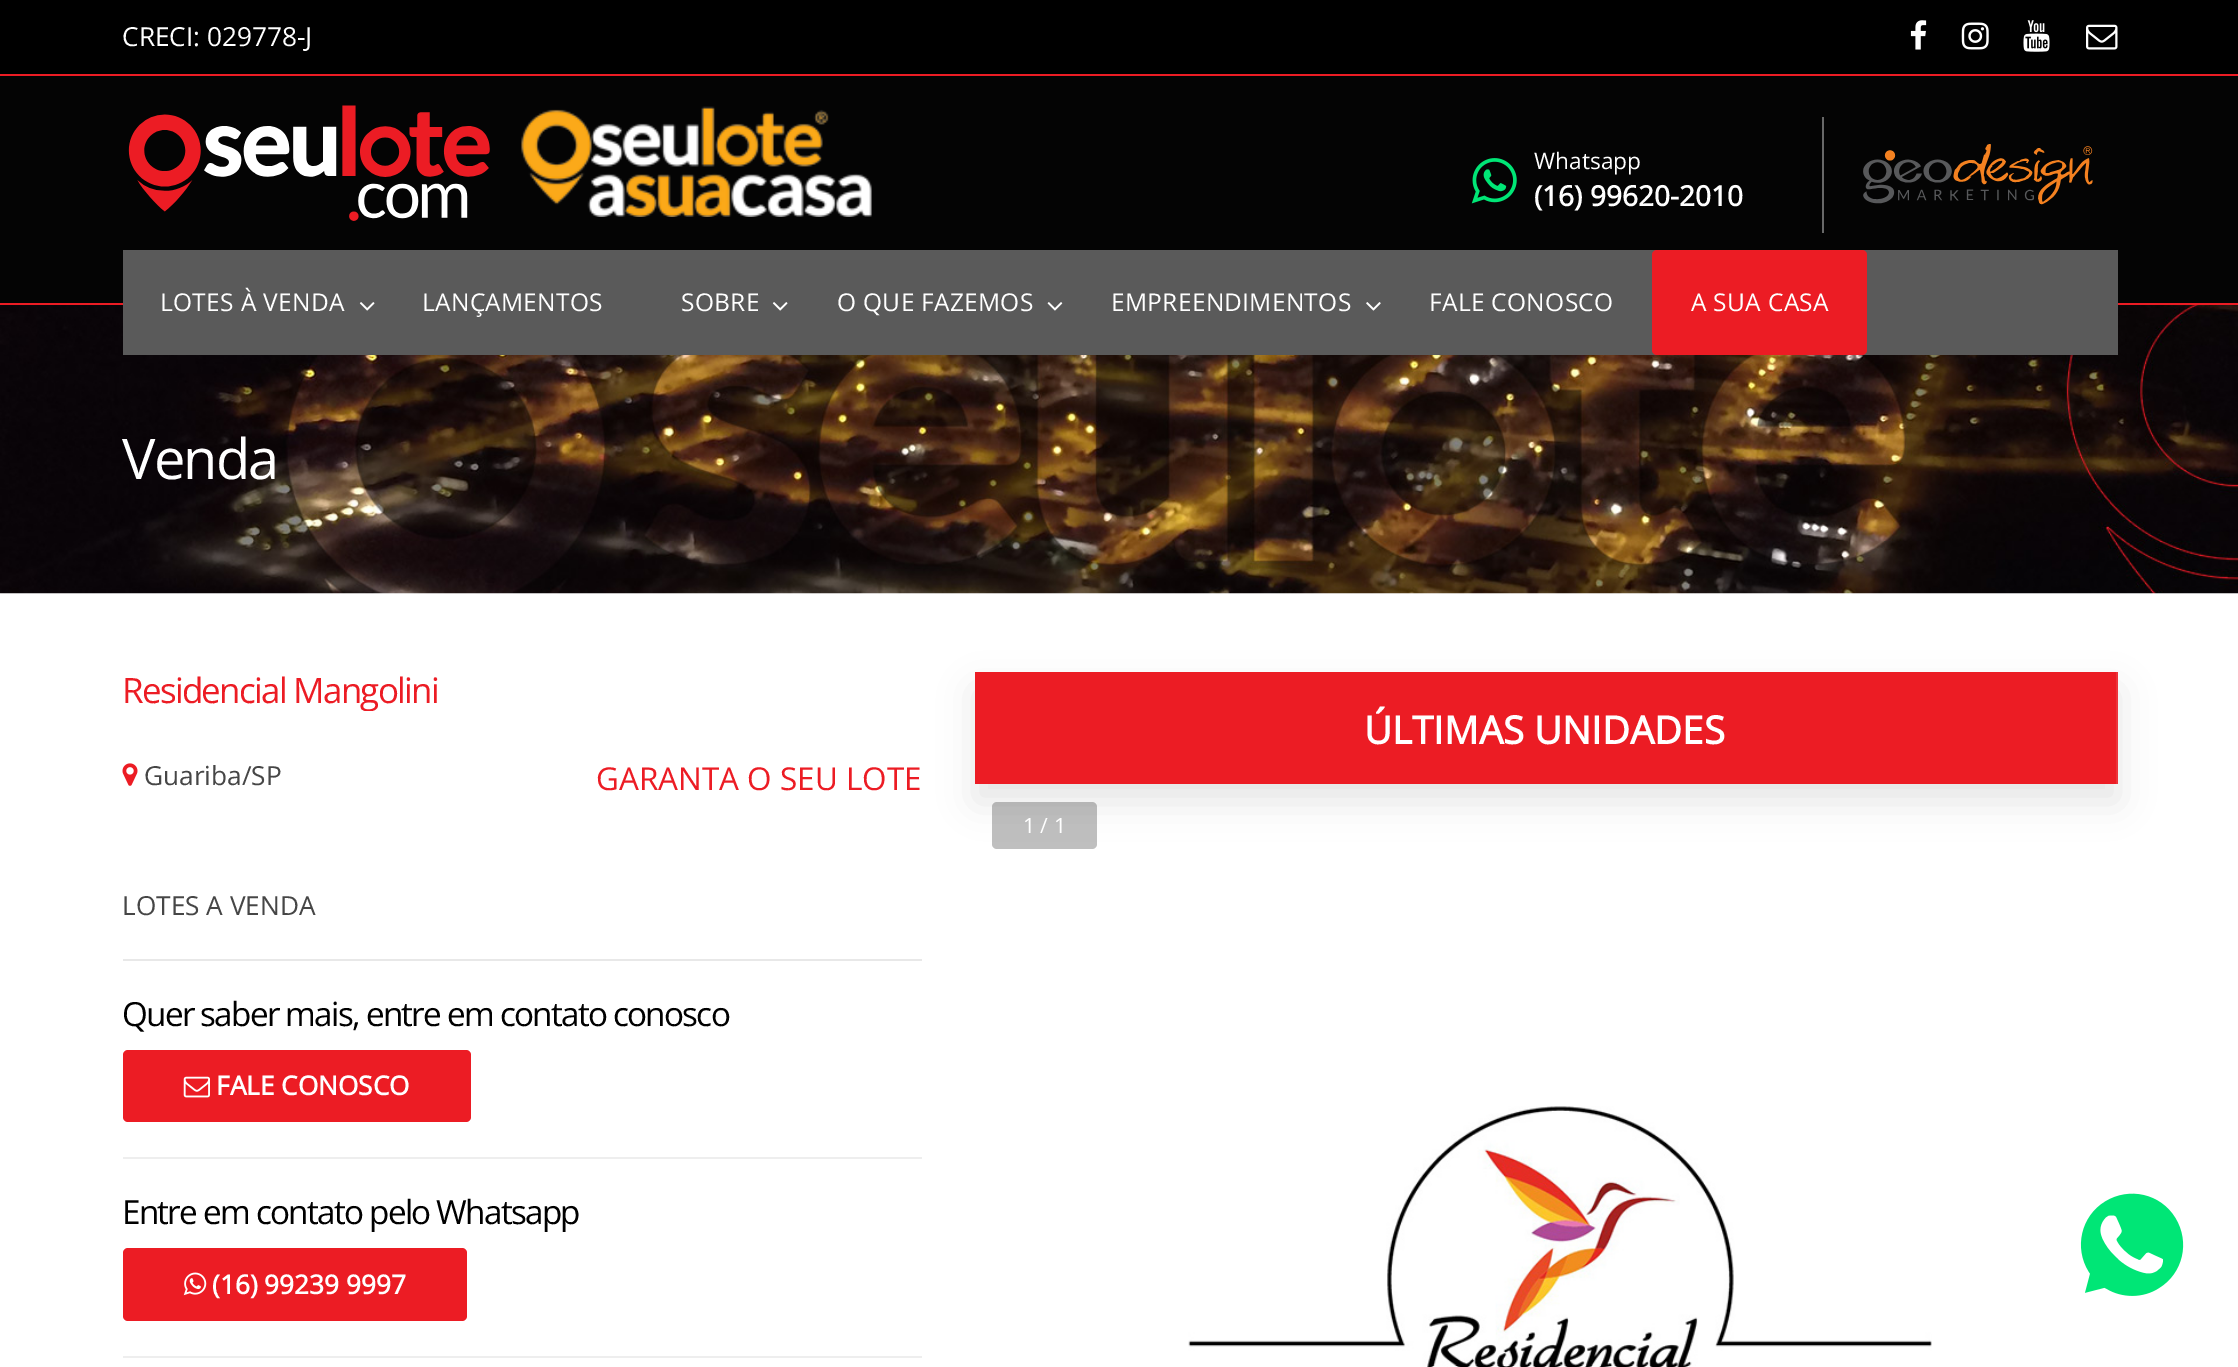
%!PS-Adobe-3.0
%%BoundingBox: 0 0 2238 1367
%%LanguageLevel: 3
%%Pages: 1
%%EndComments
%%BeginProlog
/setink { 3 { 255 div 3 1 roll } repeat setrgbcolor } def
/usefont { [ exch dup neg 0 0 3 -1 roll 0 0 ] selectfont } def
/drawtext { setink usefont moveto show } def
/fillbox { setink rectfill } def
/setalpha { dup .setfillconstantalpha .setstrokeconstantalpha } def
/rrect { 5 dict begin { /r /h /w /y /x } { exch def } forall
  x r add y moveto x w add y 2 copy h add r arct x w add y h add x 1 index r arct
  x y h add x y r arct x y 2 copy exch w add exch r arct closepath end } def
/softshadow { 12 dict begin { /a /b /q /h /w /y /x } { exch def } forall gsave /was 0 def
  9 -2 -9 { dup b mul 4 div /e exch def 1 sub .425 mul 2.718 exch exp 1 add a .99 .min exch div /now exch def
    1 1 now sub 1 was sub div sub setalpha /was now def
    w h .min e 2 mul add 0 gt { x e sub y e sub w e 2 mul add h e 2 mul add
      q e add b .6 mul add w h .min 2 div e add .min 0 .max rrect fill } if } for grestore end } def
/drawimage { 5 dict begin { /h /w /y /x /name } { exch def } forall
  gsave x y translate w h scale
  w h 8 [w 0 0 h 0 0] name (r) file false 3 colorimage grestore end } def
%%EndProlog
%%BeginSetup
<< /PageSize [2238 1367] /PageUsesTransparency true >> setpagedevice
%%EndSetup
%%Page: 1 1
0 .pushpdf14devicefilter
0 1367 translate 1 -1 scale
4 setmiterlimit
0 0 2238 1367 255 255 255 fillbox
0 76 2238 227 4 4 4 fillbox
0 303 2238 2 236 28 36 fillbox
0 0 2238 74 0 0 0 fillbox
0 74 2238 2 236 28 36 fillbox
(CRECI: 029778-J) 122 46 /OpenSans-Regular 26.25 255 255 255 drawtext
(assets/img1.rgb) 1910 20 17 30 drawimage
(assets/img2.rgb) 1961 22 28 28 drawimage
(assets/img3.rgb) 2023 20 27 32 drawimage
(assets/img4.rgb) 2086 24 32 26 drawimage
(assets/img5.rgb) 128 105 362 116 drawimage
(assets/img6.rgb) 521 106 351 111 drawimage
(assets/img7.rgb) 1471 158 46 46 drawimage
(Whatsapp) 1534 169 /OpenSans-Regular 22.75 255 255 255 drawtext
(\(16\) 99620-2010) 1534 206 /OpenSans-Bold 28 255 255 255 drawtext
1822 117 2 116 104 104 104 fillbox
(assets/img8.rgb) 1863 144 230 61 drawimage
(assets/img12.rgb) 0 305 2238 289 drawimage
123 250 1995 105 90 90 90 fillbox
/OpenSans-Regular 24.5 usefont
255 255 255 setink
160 311 moveto 0.3 0 (LOTES À VENDA) ashow
(assets/img9.rgb) 359 302 16 9 drawimage
422 311 moveto 0.3 0 (LANÇAMENTOS) ashow
681 311 moveto 0.3 0 (SOBRE) ashow
(assets/img9.rgb) 772 302 16 9 drawimage
837 311 moveto 0.3 0 (O QUE FAZEMOS) ashow
(assets/img10.rgb) 1047 302 16 9 drawimage
1111 311 moveto 0.3 0 (EMPREENDIMENTOS) ashow
(assets/img11.rgb) 1366 302 15 9 drawimage
1429 311 moveto 0.3 0 (FALE CONOSCO) ashow
236 28 36 setink
1652 250 215 105 5 rrect fill
255 255 255 setink
1691 311 moveto 0.3 0 (A SUA CASA) ashow
/OpenSans-Regular 56 usefont
122 479 moveto -1.75 0 (Venda) ashow
123 959 799 2 232 232 232 fillbox
gsave
123 672 799 39 rectclip
/OpenSans-Regular 35 usefont
236 28 36 setink
122 703 moveto -1.75 0 (Residencial Mangolini) ashow
grestore
(assets/img13.rgb) 122 763 16 23 drawimage
(Guariba/SP) 144 785 /OpenSans-Regular 26.25 70 70 70 drawtext
(GARANTA O SEU LOTE) 596 790 /OpenSans-Regular 31.5 236 28 36 drawtext
(LOTES A VENDA) 122 915 /OpenSans-Regular 26.25 70 70 70 drawtext
/OpenSans-Regular 33.25 usefont
0 0 0 setink
122 1026 moveto -1.75 0 (Quer saber mais, entre em contato conosco) ashow
236 28 36 setink
123 1050 348 72 5 rrect fill
(assets/img14.rgb) 183 1076 27 22 drawimage
(FALE CONOSCO) 216 1095 /OpenSans-Bold 26.25 255 255 255 drawtext
123 1157 799 2 238 238 238 fillbox
/OpenSans-Regular 33.25 usefont
0 0 0 setink
122 1224 moveto -1.75 0 (Entre em contato pelo Whatsapp) ashow
236 28 36 setink
123 1248 344 73 5 rrect fill
(assets/img15.rgb) 183 1272 24 24 drawimage
(\(16\) 99239 9997) 212 1294 /OpenSans-Bold 26.25 255 255 255 drawtext
123 1356 799 2 238 238 238 fillbox
0 0 0 setink
975 690 1143 112 0 17.5 0.1 softshadow
975 672 1143 112 236 28 36 fillbox
0.1 setalpha
2116 670 2 116 255 255 255 fillbox
1 setalpha
(ÚLTIMAS UNIDADES) 1364 744 /OpenSans-Bold 38.5 255 255 255 drawtext
0.25 setalpha
0 0 0 setink
992 802 105 47 5 rrect fill
1 setalpha
(1 / 1) 1023 833 /OpenSans-Regular 21 255 255 255 drawtext
(assets/img16.rgb) 1188 1106 744 261 drawimage
(assets/img17.rgb) 2080 1193 104 103 drawimage
.poppdf14devicefilter showpage
%%EOF
